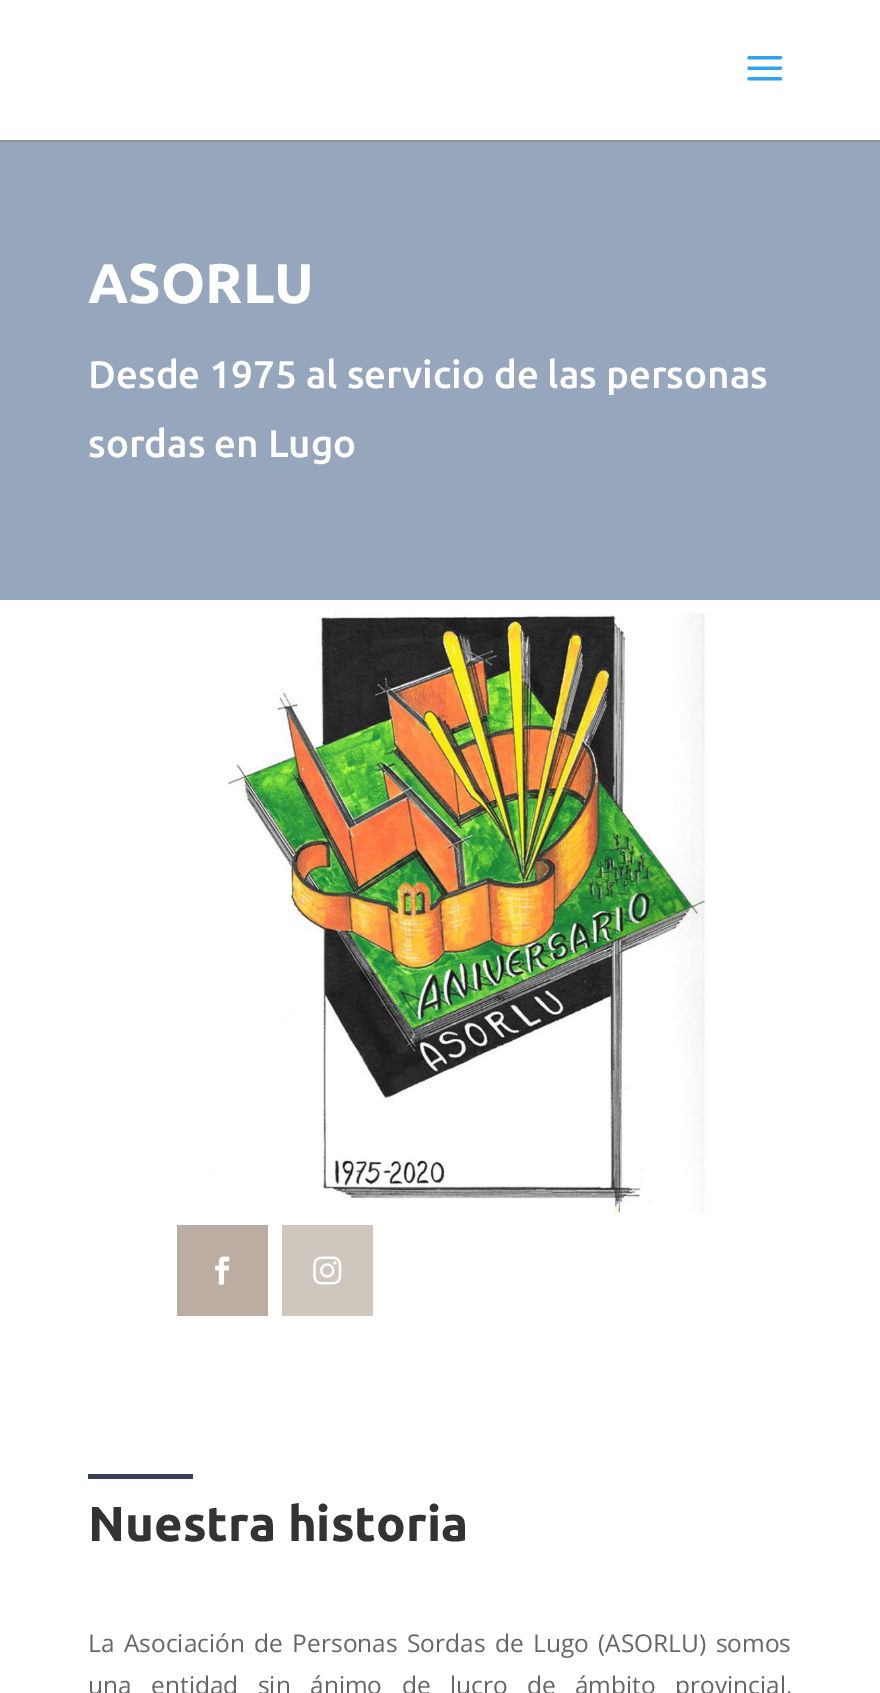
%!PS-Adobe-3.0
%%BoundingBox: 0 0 880 1693
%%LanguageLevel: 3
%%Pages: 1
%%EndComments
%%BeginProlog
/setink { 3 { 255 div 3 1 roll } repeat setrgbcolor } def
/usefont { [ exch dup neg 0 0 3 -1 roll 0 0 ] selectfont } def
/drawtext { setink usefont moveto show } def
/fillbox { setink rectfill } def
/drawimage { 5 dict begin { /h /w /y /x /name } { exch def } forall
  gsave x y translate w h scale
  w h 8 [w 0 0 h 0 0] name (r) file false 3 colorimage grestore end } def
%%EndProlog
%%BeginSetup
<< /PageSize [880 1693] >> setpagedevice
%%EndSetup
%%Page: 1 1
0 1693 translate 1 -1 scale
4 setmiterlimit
0 0 880 1693 255 255 255 fillbox
0 140 880 2 135 149 170 fillbox
(assets/img1.rgb) 747 56 36 25 drawimage
0 142 880 458 150 166 189 fillbox
(ASORLU) 88 303 /Ubuntu-Bold 56 255 255 255 drawtext
(Desde 1975 al servicio de las personas) 88 388 /Ubuntu-Medium 38.5 255 255 255 drawtext
(sordas en Lugo) 88 457 /Ubuntu-Medium 38.5 255 255 255 drawtext
(assets/img2.rgb) 211 613 494 602 drawimage
177 1225 91 91 187 173 161 fillbox
(assets/img3.rgb) 215 1256 15 29 drawimage
282 1225 91 91 207 198 189 fillbox
(assets/img4.rgb) 313 1256 29 29 drawimage
88 1474 105 5 57 62 86 fillbox
(Nuestra historia) 88 1541 /Ubuntu-Bold 49 51 51 51 drawtext
/OpenSans-Regular 24.5 usefont
102 102 102 setink
88 1652 moveto 3 0 32 (La Asociación de Personas Sordas de Lugo \(ASORLU\) somos) widthshow
88 1694 moveto 13 0 32 (una entidad sin ánimo de lucro de ámbito provincial,) widthshow
showpage
%%EOF
